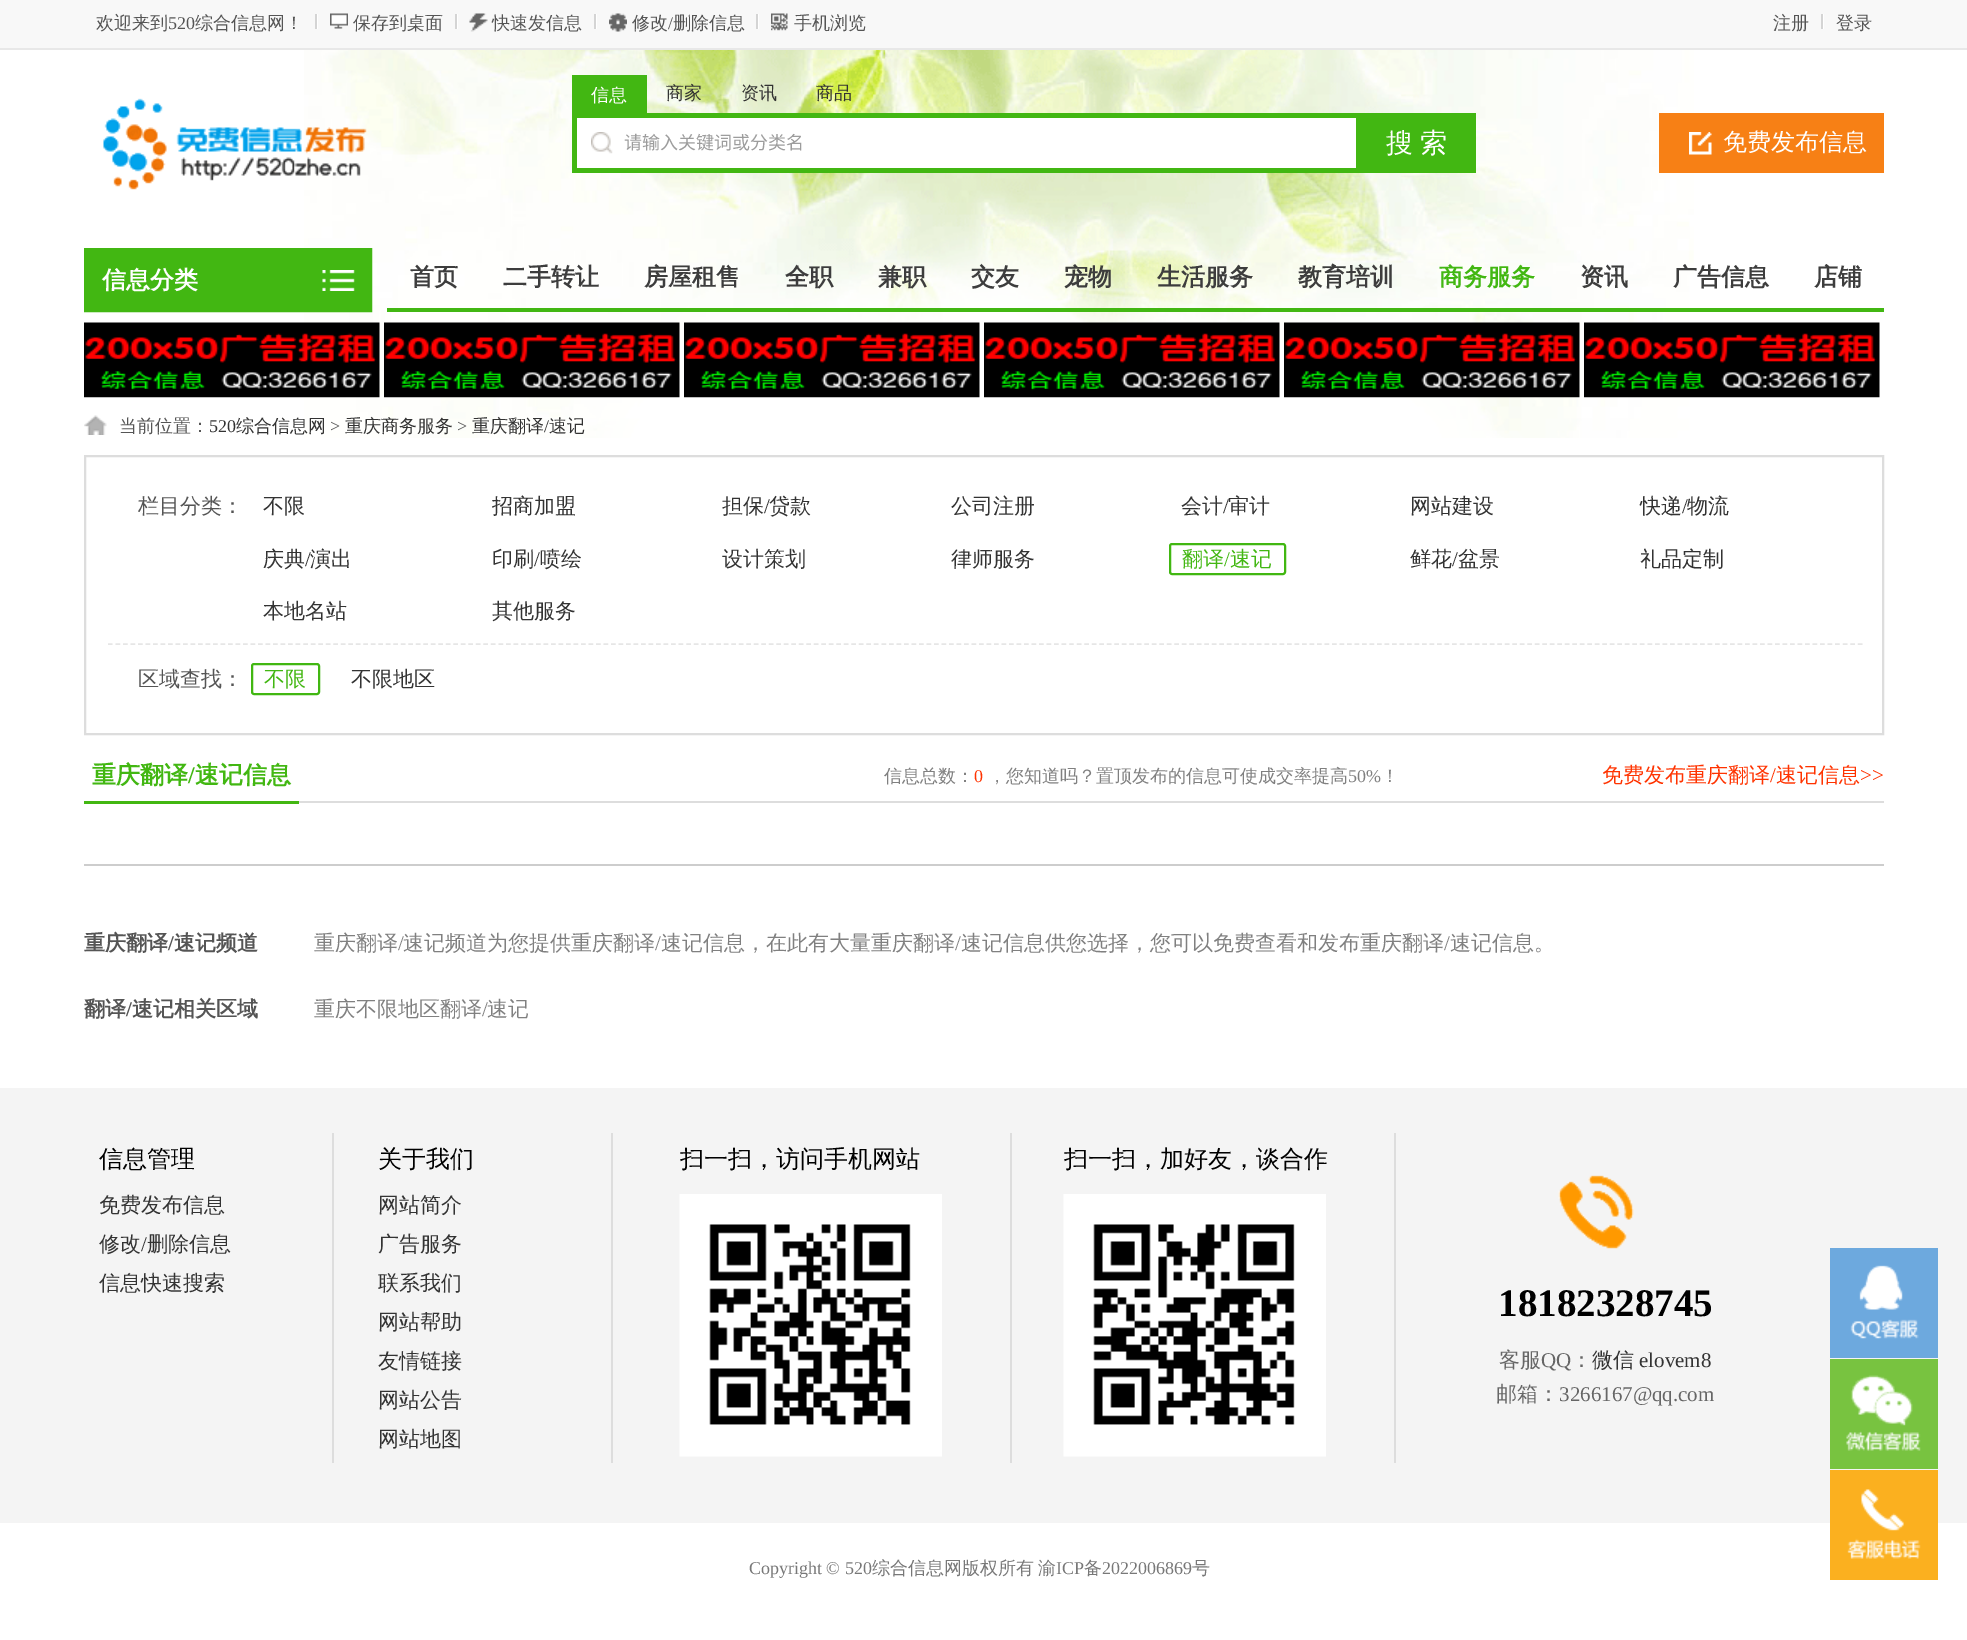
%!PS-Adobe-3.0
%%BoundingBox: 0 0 1967 1640
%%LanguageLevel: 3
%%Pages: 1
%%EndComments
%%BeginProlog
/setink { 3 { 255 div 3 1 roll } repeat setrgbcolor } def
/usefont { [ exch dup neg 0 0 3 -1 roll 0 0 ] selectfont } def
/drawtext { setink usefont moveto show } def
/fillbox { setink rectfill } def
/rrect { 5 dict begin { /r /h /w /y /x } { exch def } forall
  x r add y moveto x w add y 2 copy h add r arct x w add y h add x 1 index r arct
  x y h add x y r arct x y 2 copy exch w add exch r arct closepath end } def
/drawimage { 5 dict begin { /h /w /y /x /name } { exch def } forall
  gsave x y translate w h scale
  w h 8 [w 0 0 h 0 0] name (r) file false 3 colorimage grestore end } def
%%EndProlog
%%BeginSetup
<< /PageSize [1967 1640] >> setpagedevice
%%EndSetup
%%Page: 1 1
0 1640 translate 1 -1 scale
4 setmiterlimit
0 0 1967 1640 255 255 255 fillbox
(assets/img1.rgb) 304 50 1390 388 drawimage
0 0 1967 48 248 248 248 fillbox
0 48 1967 2 232 232 232 fillbox
(欢迎来到) 96 29 /WenQuanYiZenHei-Medium 18 85 85 85 drawtext
(520) 168 29 /LiberationSerif-Regular 18 85 85 85 drawtext
(综合信息网！) 195 29 /WenQuanYiZenHei-Medium 18 85 85 85 drawtext
317 14 1 15 255 255 255 fillbox
315 14 2 15 212 212 212 fillbox
(assets/img2.rgb) 330 13 18 16 drawimage
(保存到桌面) 353 29 /WenQuanYiZenHei-Medium 18 85 85 85 drawtext
457 14 1 15 255 255 255 fillbox
455 14 2 15 212 212 212 fillbox
(assets/img3.rgb) 469 13 19 19 drawimage
(快速发信息) 492 29 /WenQuanYiZenHei-Medium 18 85 85 85 drawtext
596 14 1 15 255 255 255 fillbox
594 14 2 15 212 212 212 fillbox
(assets/img4.rgb) 609 13 18 19 drawimage
(修改) 632 29 /WenQuanYiZenHei-Medium 18 85 85 85 drawtext
(/) 668 29 /LiberationSerif-Regular 18 85 85 85 drawtext
(删除信息) 673 29 /WenQuanYiZenHei-Medium 18 85 85 85 drawtext
758 14 1 15 255 255 255 fillbox
756 14 2 15 212 212 212 fillbox
(assets/img5.rgb) 771 13 17 18 drawimage
(手机浏览) 794 29 /WenQuanYiZenHei-Medium 18 85 85 85 drawtext
(注册) 1773 29 /WenQuanYiZenHei-Medium 18 85 85 85 drawtext
1823 14 1 15 255 255 255 fillbox
1821 14 2 15 212 212 212 fillbox
(登录) 1836 29 /WenQuanYiZenHei-Medium 18 85 85 85 drawtext
(assets/img6.rgb) 103 98 264 92 drawimage
572 75 75 38 66 183 18 fillbox
(信息) 591 101 /WenQuanYiZenHei-Medium 18 255 255 255 drawtext
(商家) 666 99 /WenQuanYiZenHei-Medium 18 51 51 51 drawtext
(资讯) 741 99 /WenQuanYiZenHei-Medium 18 51 51 51 drawtext
(商品) 816 99 /WenQuanYiZenHei-Medium 18 51 51 51 drawtext
577 118 779 50 255 255 255 fillbox
(assets/img7.rgb) 591 132 22 22 drawimage
572 113 784 5 66 183 18 fillbox
572 168 784 5 66 183 18 fillbox
572 113 5 60 66 183 18 fillbox
(请输入关键词或分类名) 624 149 /NotoSansCJKSC-Regular 18 157 157 157 drawtext
1356 113 120 60 66 183 18 fillbox
/WenQuanYiZenHei-Medium 27 usefont
255 255 255 setink
1386 152 moveto -1 0 32 (搜 索) widthshow
1659 113 225 60 247 128 21 fillbox
(assets/img8.rgb) 1689 132 23 23 drawimage
(免费发布信息) 1723 150 /WenQuanYiZenHei-Medium 24 255 255 255 drawtext
66 183 18 setink
3 setlinewidth
85.5 249.5 285 61 rectstroke
87 251 282 58 66 183 18 fillbox
(assets/img9.rgb) 322 270 33 21 drawimage
(信息分类) 102 288 /WenQuanYiZenHei-Bold 24 255 255 255 drawtext
387 308 1497 4 66 183 18 fillbox
(首页) 410 285 /WenQuanYiZenHei-Bold 24 61 61 61 drawtext
(二手转让) 503 285 /WenQuanYiZenHei-Bold 24 61 61 61 drawtext
(房屋租售) 644 285 /WenQuanYiZenHei-Bold 24 61 61 61 drawtext
(全职) 785 285 /WenQuanYiZenHei-Bold 24 61 61 61 drawtext
(兼职) 878 285 /WenQuanYiZenHei-Bold 24 61 61 61 drawtext
(交友) 971 285 /WenQuanYiZenHei-Bold 24 61 61 61 drawtext
(宠物) 1064 285 /WenQuanYiZenHei-Bold 24 61 61 61 drawtext
(生活服务) 1157 285 /WenQuanYiZenHei-Bold 24 61 61 61 drawtext
(教育培训) 1298 285 /WenQuanYiZenHei-Bold 24 61 61 61 drawtext
(商务服务) 1439 285 /WenQuanYiZenHei-Bold 24 66 183 18 drawtext
(资讯) 1580 285 /WenQuanYiZenHei-Bold 24 61 61 61 drawtext
(广告信息) 1673 285 /WenQuanYiZenHei-Bold 24 61 61 61 drawtext
(店铺) 1814 285 /WenQuanYiZenHei-Bold 24 61 61 61 drawtext
(assets/img10.rgb) 84 322 296 76 drawimage
(assets/img11.rgb) 384 322 296 76 drawimage
(assets/img12.rgb) 684 322 296 76 drawimage
(assets/img13.rgb) 984 322 296 76 drawimage
(assets/img14.rgb) 1284 322 296 76 drawimage
(assets/img15.rgb) 1584 322 296 76 drawimage
(assets/img16.rgb) 84 415 23 20 drawimage
(当前位置：) 119 432 /WenQuanYiZenHei-Medium 18 85 85 85 drawtext
(520) 209 432 /LiberationSerif-Regular 18 51 51 51 drawtext
(综合信息网) 236 432 /WenQuanYiZenHei-Medium 18 51 51 51 drawtext
(>) 330 432 /LiberationSerif-Regular 18 85 85 85 drawtext
(重庆商务服务) 345 432 /WenQuanYiZenHei-Medium 18 51 51 51 drawtext
(>) 457 432 /LiberationSerif-Regular 18 85 85 85 drawtext
(重庆翻译) 472 432 /WenQuanYiZenHei-Medium 18 51 51 51 drawtext
(/) 544 432 /LiberationSerif-Regular 18 51 51 51 drawtext
(速记) 549 432 /WenQuanYiZenHei-Medium 18 51 51 51 drawtext
221 221 221 setink
2 setlinewidth
85 456 1798 278 rectstroke
230 230 230 setink
1.5 setlinewidth
[4.5 3.01] 0 setdash
108 644 moveto 1863 644 lineto stroke
(栏目分类：) 138 513 /WenQuanYiZenHei-Medium 21 85 85 85 drawtext
(不限) 263 513 /WenQuanYiZenHei-Medium 21 51 51 51 drawtext
(招商加盟) 492 513 /WenQuanYiZenHei-Medium 21 51 51 51 drawtext
(担保) 722 513 /WenQuanYiZenHei-Medium 21 51 51 51 drawtext
(/) 764 513 /LiberationSerif-Regular 21 51 51 51 drawtext
(贷款) 769 513 /WenQuanYiZenHei-Medium 21 51 51 51 drawtext
(公司注册) 951 513 /WenQuanYiZenHei-Medium 21 51 51 51 drawtext
(会计) 1181 513 /WenQuanYiZenHei-Medium 21 51 51 51 drawtext
(/) 1223 513 /LiberationSerif-Regular 21 51 51 51 drawtext
(审计) 1228 513 /WenQuanYiZenHei-Medium 21 51 51 51 drawtext
(网站建设) 1410 513 /WenQuanYiZenHei-Medium 21 51 51 51 drawtext
(快递) 1640 513 /WenQuanYiZenHei-Medium 21 51 51 51 drawtext
(/) 1682 513 /LiberationSerif-Regular 21 51 51 51 drawtext
(物流) 1687 513 /WenQuanYiZenHei-Medium 21 51 51 51 drawtext
(庆典) 263 566 /WenQuanYiZenHei-Medium 21 51 51 51 drawtext
(/) 305 566 /LiberationSerif-Regular 21 51 51 51 drawtext
(演出) 310 566 /WenQuanYiZenHei-Medium 21 51 51 51 drawtext
(印刷) 492 566 /WenQuanYiZenHei-Medium 21 51 51 51 drawtext
(/) 534 566 /LiberationSerif-Regular 21 51 51 51 drawtext
(喷绘) 540 566 /WenQuanYiZenHei-Medium 21 51 51 51 drawtext
(设计策划) 722 566 /WenQuanYiZenHei-Medium 21 51 51 51 drawtext
(律师服务) 951 566 /WenQuanYiZenHei-Medium 21 51 51 51 drawtext
65 183 18 setink
2 setlinewidth
[] 0 setdash
1170 544 115 30 2 rrect stroke
(翻译) 1182 566 /WenQuanYiZenHei-Medium 21 66 183 18 drawtext
(/) 1224 566 /LiberationSerif-Regular 21 66 183 18 drawtext
(速记) 1230 566 /WenQuanYiZenHei-Medium 21 66 183 18 drawtext
(鲜花) 1410 566 /WenQuanYiZenHei-Medium 21 51 51 51 drawtext
(/) 1452 566 /LiberationSerif-Regular 21 51 51 51 drawtext
(盆景) 1458 566 /WenQuanYiZenHei-Medium 21 51 51 51 drawtext
(礼品定制) 1640 566 /WenQuanYiZenHei-Medium 21 51 51 51 drawtext
(本地名站) 263 618 /WenQuanYiZenHei-Medium 21 51 51 51 drawtext
(其他服务) 492 618 /WenQuanYiZenHei-Medium 21 51 51 51 drawtext
(区域查找：) 138 686 /WenQuanYiZenHei-Medium 21 85 85 85 drawtext
65 183 18 setink
252 664 67 30 2 rrect stroke
(不限) 264 686 /WenQuanYiZenHei-Medium 21 66 183 18 drawtext
(不限地区) 351 686 /WenQuanYiZenHei-Medium 21 51 51 51 drawtext
299 801 1585 2 221 221 221 fillbox
84 801 215 3 66 183 18 fillbox
(重庆翻译) 92 783 /WenQuanYiZenHei-Bold 24 66 183 18 drawtext
(/) 188 783 /LiberationSerif-Bold 24 66 183 18 drawtext
(速记信息) 195 783 /WenQuanYiZenHei-Bold 24 66 183 18 drawtext
(信息总数：) 884 782 /WenQuanYiZenHei-Medium 18 128 128 128 drawtext
(0) 974 782 /LiberationSerif-Regular 18 255 51 0 drawtext
(，您知道吗？置顶发布的信息可使成交率提高) 988 782 /WenQuanYiZenHei-Medium 18 128 128 128 drawtext
(50%) 1348 782 /LiberationSerif-Regular 18 128 128 128 drawtext
(！) 1381 782 /WenQuanYiZenHei-Medium 18 128 128 128 drawtext
(免费发布重庆翻译) 1602 782 /WenQuanYiZenHei-Medium 21 255 51 0 drawtext
(/) 1770 782 /LiberationSerif-Regular 21 255 51 0 drawtext
(速记信息) 1776 782 /WenQuanYiZenHei-Medium 21 255 51 0 drawtext
(>>) 1860 782 /LiberationSerif-Regular 21 255 51 0 drawtext
84 864 1800 2 205 205 205 fillbox
(重庆翻译) 84 950 /WenQuanYiZenHei-Bold 21 85 85 85 drawtext
(/) 168 950 /LiberationSerif-Bold 21 85 85 85 drawtext
(速记频道) 174 950 /WenQuanYiZenHei-Bold 21 85 85 85 drawtext
(重庆翻译) 314 950 /WenQuanYiZenHei-Medium 21 128 128 128 drawtext
(/) 398 950 /LiberationSerif-Regular 21 128 128 128 drawtext
(速记频道为您提供重庆翻译) 403 950 /WenQuanYiZenHei-Medium 21 128 128 128 drawtext
(/) 655 950 /LiberationSerif-Regular 21 128 128 128 drawtext
(速记信息，在此有大量重庆翻译) 661 950 /WenQuanYiZenHei-Medium 21 128 128 128 drawtext
(/) 955 950 /LiberationSerif-Regular 21 128 128 128 drawtext
(速记信息供您选择，您可以免费查看和发布重庆翻译) 961 950 /WenQuanYiZenHei-Medium 21 128 128 128 drawtext
(/) 1444 950 /LiberationSerif-Regular 21 128 128 128 drawtext
(速记信息。) 1450 950 /WenQuanYiZenHei-Medium 21 128 128 128 drawtext
(翻译) 84 1016 /WenQuanYiZenHei-Bold 21 85 85 85 drawtext
(/) 126 1016 /LiberationSerif-Bold 21 85 85 85 drawtext
(速记相关区域) 132 1016 /WenQuanYiZenHei-Bold 21 85 85 85 drawtext
(重庆不限地区翻译) 314 1016 /WenQuanYiZenHei-Medium 21 128 128 128 drawtext
(/) 482 1016 /LiberationSerif-Regular 21 128 128 128 drawtext
(速记) 487 1016 /WenQuanYiZenHei-Medium 21 128 128 128 drawtext
0 1088 1967 435 244 244 244 fillbox
332 1133 2 330 221 221 221 fillbox
(信息管理) 99 1167 /WenQuanYiZenHei-Medium 24 0 0 0 drawtext
(免费发布信息) 99 1212 /WenQuanYiZenHei-Medium 21 51 51 51 drawtext
(修改) 99 1251 /WenQuanYiZenHei-Medium 21 51 51 51 drawtext
(/) 141 1251 /LiberationSerif-Regular 21 51 51 51 drawtext
(删除信息) 147 1251 /WenQuanYiZenHei-Medium 21 51 51 51 drawtext
(信息快速搜索) 99 1290 /WenQuanYiZenHei-Medium 21 51 51 51 drawtext
611 1133 2 330 221 221 221 fillbox
(关于我们) 378 1167 /WenQuanYiZenHei-Medium 24 0 0 0 drawtext
(网站简介) 378 1212 /WenQuanYiZenHei-Medium 21 51 51 51 drawtext
(广告服务) 378 1251 /WenQuanYiZenHei-Medium 21 51 51 51 drawtext
(联系我们) 378 1290 /WenQuanYiZenHei-Medium 21 51 51 51 drawtext
(网站帮助) 378 1329 /WenQuanYiZenHei-Medium 21 51 51 51 drawtext
(友情链接) 378 1368 /WenQuanYiZenHei-Medium 21 51 51 51 drawtext
(网站公告) 378 1407 /WenQuanYiZenHei-Medium 21 51 51 51 drawtext
(网站地图) 378 1446 /WenQuanYiZenHei-Medium 21 51 51 51 drawtext
1010 1133 2 330 221 221 221 fillbox
(扫一扫，访问手机网站) 680 1167 /WenQuanYiZenHei-Medium 24 0 0 0 drawtext
(assets/img17.rgb) 679 1194 263 263 drawimage
1394 1133 2 330 221 221 221 fillbox
(扫一扫，加好友，谈合作) 1064 1167 /WenQuanYiZenHei-Medium 24 0 0 0 drawtext
(assets/img18.rgb) 1063 1194 263 263 drawimage
(assets/img19.rgb) 1558 1175 76 74 drawimage
(18182328745) 1498 1316 /LiberationSerif-Bold 39 0 0 0 drawtext
(客服) 1499 1367 /WenQuanYiZenHei-Medium 21 102 102 102 drawtext
(QQ) 1541 1367 /LiberationSerif-Regular 21 102 102 102 drawtext
(：) 1571 1367 /WenQuanYiZenHei-Medium 21 102 102 102 drawtext
(微信) 1592 1367 /WenQuanYiZenHei-Medium 21 51 51 51 drawtext
(elovem8) 1639 1367 /LiberationSerif-Regular 21 51 51 51 drawtext
(邮箱：) 1496 1401 /WenQuanYiZenHei-Medium 21 102 102 102 drawtext
(3266167@qq.com) 1559 1401 /LiberationSerif-Regular 21 102 102 102 drawtext
(Copyright © 520) 749 1574 /LiberationSerif-Regular 18 120 120 120 drawtext
(综合信息网版权所有) 872 1574 /WenQuanYiZenHei-Medium 18 120 120 120 drawtext
(渝) 1038 1574 /WenQuanYiZenHei-Medium 18 120 120 120 drawtext
(ICP) 1056 1574 /LiberationSerif-Regular 18 120 120 120 drawtext
(备) 1084 1574 /WenQuanYiZenHei-Medium 18 120 120 120 drawtext
(2022006869) 1102 1574 /LiberationSerif-Regular 18 120 120 120 drawtext
(号) 1192 1574 /WenQuanYiZenHei-Medium 18 120 120 120 drawtext
1830 1248 108 110 109 169 222 fillbox
(assets/img20.rgb) 1850 1265 69 74 drawimage
1830 1359 108 110 120 195 64 fillbox
(assets/img21.rgb) 1846 1375 75 76 drawimage
1830 1470 108 110 251 176 31 fillbox
(assets/img22.rgb) 1847 1489 74 70 drawimage
showpage
%%EOF
